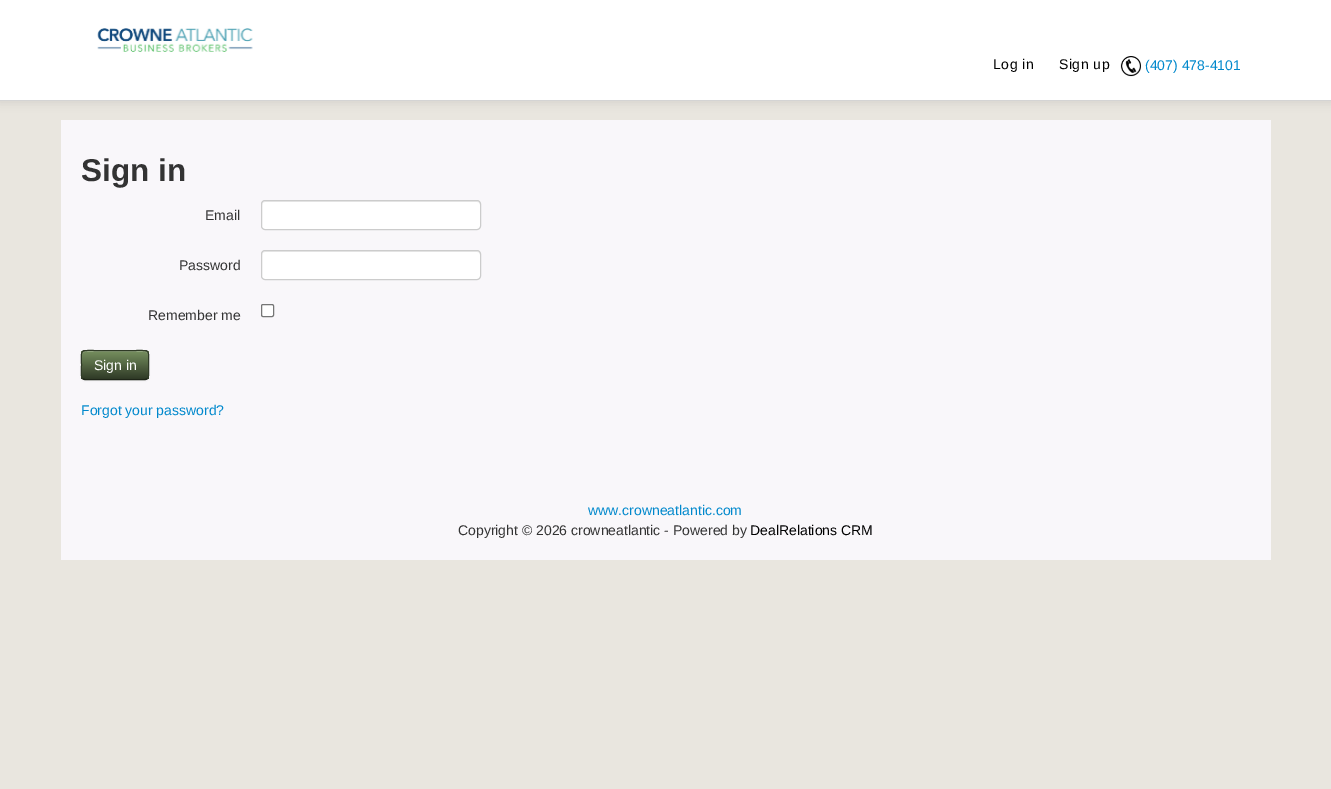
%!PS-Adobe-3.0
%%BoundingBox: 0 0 1331 789
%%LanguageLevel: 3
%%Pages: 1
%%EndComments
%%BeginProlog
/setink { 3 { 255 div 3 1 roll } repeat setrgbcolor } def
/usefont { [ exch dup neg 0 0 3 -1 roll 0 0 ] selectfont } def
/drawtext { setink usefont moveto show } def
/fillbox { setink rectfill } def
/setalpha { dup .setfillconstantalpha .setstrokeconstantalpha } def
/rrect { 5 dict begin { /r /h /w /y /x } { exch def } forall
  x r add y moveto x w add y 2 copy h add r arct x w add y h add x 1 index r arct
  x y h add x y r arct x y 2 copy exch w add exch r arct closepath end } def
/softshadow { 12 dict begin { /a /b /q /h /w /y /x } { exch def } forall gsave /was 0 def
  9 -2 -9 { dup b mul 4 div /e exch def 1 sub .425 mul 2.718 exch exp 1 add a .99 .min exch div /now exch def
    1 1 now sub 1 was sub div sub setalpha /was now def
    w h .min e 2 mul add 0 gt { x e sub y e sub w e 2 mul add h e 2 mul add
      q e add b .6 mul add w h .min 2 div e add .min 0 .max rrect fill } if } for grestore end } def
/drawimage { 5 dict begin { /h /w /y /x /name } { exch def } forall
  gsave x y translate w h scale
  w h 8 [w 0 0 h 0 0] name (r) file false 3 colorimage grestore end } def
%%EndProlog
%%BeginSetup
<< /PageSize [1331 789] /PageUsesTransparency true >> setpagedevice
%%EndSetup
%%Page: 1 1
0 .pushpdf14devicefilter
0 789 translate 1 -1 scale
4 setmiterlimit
0 0 1331 789 233 230 223 fillbox
0 0 0 setink
0 1 1331 101 0 5 0.1 softshadow
0 0 1331 100 255 255 255 fillbox
0 100 1331 1 212 212 212 fillbox
(assets/img1.rgb) 97 28 156 24 drawimage
/LiberationSans-Regular 14 usefont
0 0 0 setink
993 69 moveto 0.5 0 (Log in) ashow
1059 69 moveto 0.5 0 (Sign up) ashow
(assets/img2.rgb) 1120 56 21 21 drawimage
(\(407\) 478-4101) 1145 70 /LiberationSans-Regular 14 0 136 204 drawtext
61 120 1210 440 249 247 250 fillbox
(Sign in) 81 181 /LiberationSans-Bold 31.5 51 51 51 drawtext
(Email) 205 220 /LiberationSans-Regular 14 51 51 51 drawtext
255 255 255 setink
261 200 220 30 4 rrect fill
236 236 236 setink
265 202 moveto 477 202 lineto 479 202 480 203 480 205 curveto 480 204 lineto 480 202 479 201 477 201 curveto 265 201 lineto 263 201 262 202 262 204 curveto 262 205 lineto 262 203 263 202 265 202 curveto closepath fill
204 204 204 setink
261.5 200.5 219 29 3.5 rrect stroke
(Password) 179 270 /LiberationSans-Regular 14 51 51 51 drawtext
255 255 255 setink
261 250 220 30 4 rrect fill
236 236 236 setink
265 252 moveto 477 252 lineto 479 252 480 253 480 255 curveto 480 254 lineto 480 252 479 251 477 251 curveto 265 251 lineto 263 251 262 252 262 254 curveto 262 255 lineto 262 253 263 252 265 252 curveto closepath fill
204 204 204 setink
261.5 250.5 219 29 3.5 rrect stroke
(Remember me) 148 320 /LiberationSans-Regular 14 51 51 51 drawtext
255 255 255 setink
261.5 304.5 12 12 1.5 rrect gsave fill grestore
118 118 118 setink
stroke
0 0 0 setink
81 351 68 30 4 1 0.05 softshadow
48 58 39 setink
81 350 68 30 4 rrect fill
gsave
81 350 68 30 4 rrect clip newpath
gsave 81 351 moveto 149 351 lineto 149 379 lineto 81 379 lineto closepath clip newpath
<< /ShadingType 2 /ColorSpace /DeviceRGB /Coords [115 351 115 379] /Extend [true true] /Function << /FunctionType 2 /Domain [0 1] /C0 [0.463 0.561 0.373] /C1 [0.184 0.227 0.149] /N 1 >> >> shfill grestore
grestore
0.2 setalpha
255 255 255 setink
85 352 moveto 145 352 lineto 147 352 148 353 148 355 curveto 148 348 139 351 135 351 curveto 95 351 lineto 91 351 82 348 82 355 curveto 82 353 83 352 85 352 curveto closepath fill
1 setalpha
30 37 24 setink
147.5 378.5 moveto 145.5 379.5 lineto 84.5 379.5 lineto 82.5 378.5 lineto stroke
47 58 38 setink
82.5 378.5 moveto 80.5 376.5 81.5 368 81.5 365 curveto 81.5 349 79 350.5 95 350.5 curveto 135 350.5 lineto 151 350.5 148.5 349 148.5 365 curveto 148.5 368 149.5 376.5 147.5 378.5 curveto stroke
(Sign in) 94 370 /LiberationSans-Regular 14 255 255 255 drawtext
(Forgot your password?) 81 415 /LiberationSans-Regular 14 0 136 204 drawtext
(www.crowneatlantic.com) 588 515 /LiberationSans-Regular 14 0 136 204 drawtext
(Copyright © 2026 crowneatlantic - Powered by) 458 535 /LiberationSans-Regular 14 51 51 51 drawtext
(DealRelations CRM) 750 535 /LiberationSans-Regular 14 0 0 0 drawtext
.poppdf14devicefilter showpage
%%EOF
